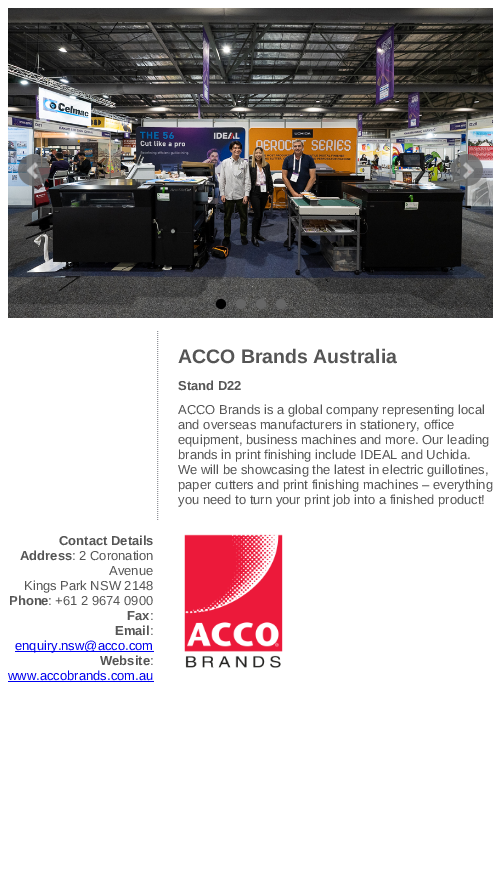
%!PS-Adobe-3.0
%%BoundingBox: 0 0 501 872
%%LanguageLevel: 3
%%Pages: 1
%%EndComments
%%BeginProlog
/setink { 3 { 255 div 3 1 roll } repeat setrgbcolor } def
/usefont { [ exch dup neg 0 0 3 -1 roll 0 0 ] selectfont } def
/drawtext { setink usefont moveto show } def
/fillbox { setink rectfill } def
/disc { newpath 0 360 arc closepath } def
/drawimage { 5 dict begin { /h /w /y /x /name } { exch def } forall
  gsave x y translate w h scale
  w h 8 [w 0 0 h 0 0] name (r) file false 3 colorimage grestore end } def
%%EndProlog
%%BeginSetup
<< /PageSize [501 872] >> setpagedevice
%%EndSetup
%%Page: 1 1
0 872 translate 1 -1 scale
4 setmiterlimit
0 0 501 872 255 255 255 fillbox
(assets/img1.rgb) 8 8 485 310 drawimage
(assets/img2.rgb) 18 154 32 32 drawimage
(assets/img3.rgb) 451 154 32 32 drawimage
0 0 0 setink
221 304 5 disc fill
102 102 102 setink
241 304 5 disc fill
261 304 5 disc fill
281 304 5 disc fill
144 146 153 setink
[1 1] 0 setdash
157.5 331 moveto 157.5 520 lineto stroke
(ACCO Brands Australia) 178 363 /LiberationSans-Bold 19.5 85 85 85 drawtext
(Stand D22) 178 390 /LiberationSans-Bold 13 85 85 85 drawtext
(ACCO Brands is a global company representing local) 178 414 /LiberationSans-Regular 13 85 85 85 drawtext
(and overseas manufacturers in stationery, office) 178 429 /LiberationSans-Regular 13 85 85 85 drawtext
(equipment, business machines and more. Our leading) 178 444 /LiberationSans-Regular 13 85 85 85 drawtext
(brands in print finishing include IDEAL and Uchida.) 178 459 /LiberationSans-Regular 13 85 85 85 drawtext
(We will be showcasing the latest in electric guillotines,) 178 474 /LiberationSans-Regular 13 85 85 85 drawtext
(paper cutters and print finishing machines – everything) 178 489 /LiberationSans-Regular 13 85 85 85 drawtext
(you need to turn your print job into a finished product!) 178 504 /LiberationSans-Regular 13 85 85 85 drawtext
(Contact Details) 59 545 /LiberationSans-Bold 13 85 85 85 drawtext
(Address) 20 560 /LiberationSans-Bold 13 85 85 85 drawtext
(: 2 Coronation) 72 560 /LiberationSans-Regular 13 85 85 85 drawtext
(Avenue) 109 575 /LiberationSans-Regular 13 85 85 85 drawtext
(Kings Park NSW 2148) 24 590 /LiberationSans-Regular 13 85 85 85 drawtext
(Phone) 9 605 /LiberationSans-Bold 13 85 85 85 drawtext
(: +61 2 9674 0900) 48 605 /LiberationSans-Regular 13 85 85 85 drawtext
(Fax) 127 620 /LiberationSans-Bold 13 85 85 85 drawtext
(:) 150 620 /LiberationSans-Regular 13 85 85 85 drawtext
(Email) 115 635 /LiberationSans-Bold 13 85 85 85 drawtext
(:) 150 635 /LiberationSans-Regular 13 85 85 85 drawtext
15 651 139 1 0 0 238 fillbox
(enquiry.nsw@acco.com) 15 650 /LiberationSans-Regular 13 0 0 238 drawtext
(Website) 100 665 /LiberationSans-Bold 13 85 85 85 drawtext
(:) 150 665 /LiberationSans-Regular 13 85 85 85 drawtext
(www.accobrands.com.au) 8 680 /LiberationSans-Regular 13 0 0 238 drawtext
8 681 146 1 0 0 238 fillbox
(assets/img4.rgb) 184 534 99 134 drawimage
showpage
%%EOF
